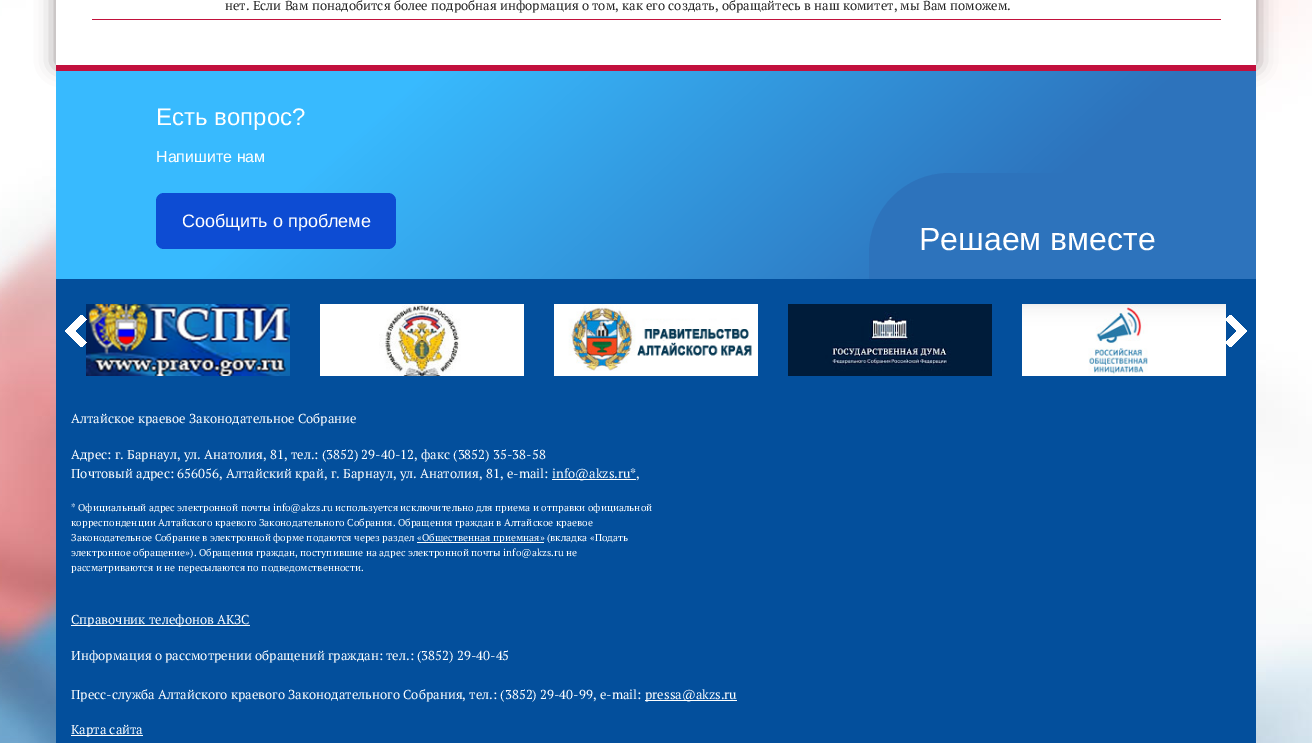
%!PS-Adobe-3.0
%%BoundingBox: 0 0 1312 743
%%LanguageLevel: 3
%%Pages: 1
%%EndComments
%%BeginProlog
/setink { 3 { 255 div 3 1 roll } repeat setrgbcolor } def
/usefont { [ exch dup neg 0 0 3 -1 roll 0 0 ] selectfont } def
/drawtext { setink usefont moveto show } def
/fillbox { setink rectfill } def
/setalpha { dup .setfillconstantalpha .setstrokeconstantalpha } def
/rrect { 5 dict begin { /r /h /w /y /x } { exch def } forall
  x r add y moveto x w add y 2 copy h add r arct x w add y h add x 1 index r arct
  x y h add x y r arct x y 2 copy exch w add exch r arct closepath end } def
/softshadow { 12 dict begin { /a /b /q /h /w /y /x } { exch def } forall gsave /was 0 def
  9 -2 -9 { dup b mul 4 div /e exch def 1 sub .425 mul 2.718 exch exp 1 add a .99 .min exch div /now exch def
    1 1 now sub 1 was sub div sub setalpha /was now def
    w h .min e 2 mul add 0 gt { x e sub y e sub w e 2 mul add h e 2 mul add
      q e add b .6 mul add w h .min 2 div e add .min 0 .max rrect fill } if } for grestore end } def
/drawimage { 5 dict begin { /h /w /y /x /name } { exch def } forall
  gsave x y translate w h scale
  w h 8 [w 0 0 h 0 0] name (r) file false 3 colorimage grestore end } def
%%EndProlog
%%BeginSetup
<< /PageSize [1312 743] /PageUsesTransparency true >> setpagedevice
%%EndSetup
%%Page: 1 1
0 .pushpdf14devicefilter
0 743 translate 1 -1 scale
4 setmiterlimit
0 0 1312 743 255 255 255 fillbox
(assets/img1.rgb) 0 0 1312 743 drawimage
148 141 141 setink
56 -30 1200 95 0 10 1 softshadow
56 0 1200 65 255 255 255 fillbox
92 19 1129 1 194 17 59 fillbox
(нет. Если Вам понадобится более подробная информация о том, как его создать, обращайтесь в наш комитет, мы Вам поможем.) 225 10 /PTSerif-Regular 13 34 34 34 drawtext
56 279 1200 464 3 79 156 fillbox
56 65 1200 6 194 16 61 fillbox
gsave 56 71 moveto 1256 71 lineto 1256 279 lineto 56 279 lineto closepath clip newpath
<< /ShadingType 2 /ColorSpace /DeviceRGB /Coords [340 -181 972 531] /Extend [true true] /Function << /FunctionType 3 /Domain [0 1] /Functions [<< /FunctionType 2 /Domain [0 1] /C0 [0.22 0.729 0.996] /C1 [0.22 0.729 0.996] /N 1 >> << /FunctionType 2 /Domain [0 1] /C0 [0.22 0.729 0.996] /C1 [0.176 0.451 0.737] /N 1 >> << /FunctionType 2 /Domain [0 1] /C0 [0.176 0.451 0.737] /C1 [0.176 0.451 0.737] /N 1 >>] /Bounds [0.26 0.79] /Encode [0 1 0 1 0 1] >> >> shfill grestore
(Есть вопрос?) 156 125 /LiberationSans-Regular 24 255 255 255 drawtext
(Напишите нам) 156 162 /LiberationSans-Regular 16 255 255 255 drawtext
13 76 211 setink
156 193 240 56 8 rrect fill
(Сообщить о проблеме) 182 227 /LiberationSans-Regular 18 255 255 255 drawtext
45 115 188 setink
949 173 moveto 1186 173 lineto 1186 279 lineto 869 279 lineto 869 253 lineto 869 209 905 173 949 173 curveto closepath fill
(Решаем вместе) 919 250 /LiberationSans-Regular 32 255 255 255 drawtext
(assets/img3.rgb) 86 304 204 72 drawimage
(assets/img2.rgb) 65 315 22 32 drawimage
(assets/img4.rgb) 320 304 204 72 drawimage
(assets/img5.rgb) 554 304 204 72 drawimage
(assets/img6.rgb) 788 304 204 72 drawimage
(assets/img7.rgb) 1022 304 204 72 drawimage
(assets/img8.rgb) 1226 315 21 32 drawimage
(Алтайское краевое Законодательное Собрание) 71 423 /PTSerif-Regular 13 255 255 255 drawtext
(Адрес: г. Барнаул, ул. Анатолия, 81, тел.: \(3852\) 29-40-12, факс \(3852\) 35-38-58) 71 459 /PTSerif-Regular 13 255 255 255 drawtext
(Почтовый адрес: 656056, Алтайский край, г. Барнаул, ул. Анатолия, 81, e-mail:) 71 478 /PTSerif-Regular 13 255 255 255 drawtext
552 479 84 1 255 255 255 fillbox
(info@akzs.ru*,) 552 478 /PTSerif-Regular 13 255 255 255 drawtext
(* Официальный адрес электронной почты info@akzs.ru используется исключительно для приема и отправки официальной) 71 511 /PTSerif-Regular 10 255 255 255 drawtext
(корреспонденции Алтайского краевого Законодательного Собрания. Обращения граждан в Алтайское краевое) 71 526 /PTSerif-Regular 10 255 255 255 drawtext
(Законодательное Собрание в электронной форме подаются через раздел) 71 541 /PTSerif-Regular 10 255 255 255 drawtext
417 542 127 1 255 255 255 fillbox
(«Общественная приемная» \(вкладка «Подать) 417 541 /PTSerif-Regular 10 255 255 255 drawtext
(электронное обращение»\). Обращения граждан, поступившие на адрес электронной почты info@akzs.ru не) 71 556 /PTSerif-Regular 10 255 255 255 drawtext
(рассматриваются и не пересылаются по подведомственности.) 71 571 /PTSerif-Regular 10 255 255 255 drawtext
71 625 179 1 255 255 255 fillbox
(Справочник телефонов АКЗС) 71 624 /PTSerif-Regular 13 255 255 255 drawtext
(Информация о рассмотрении обращений граждан: тел.: \(3852\) 29-40-45) 71 660 /PTSerif-Regular 13 255 255 255 drawtext
(Пресс-служба Алтайского краевого Законодательного Собрания, тел.: \(3852\) 29-40-99, e-mail:) 71 699 /PTSerif-Regular 13 255 255 255 drawtext
645 700 92 1 255 255 255 fillbox
(pressa@akzs.ru) 645 699 /PTSerif-Regular 13 255 255 255 drawtext
71 735 72 1 255 255 255 fillbox
(Карта сайта) 71 734 /PTSerif-Regular 13 255 255 255 drawtext
.poppdf14devicefilter showpage
%%EOF
